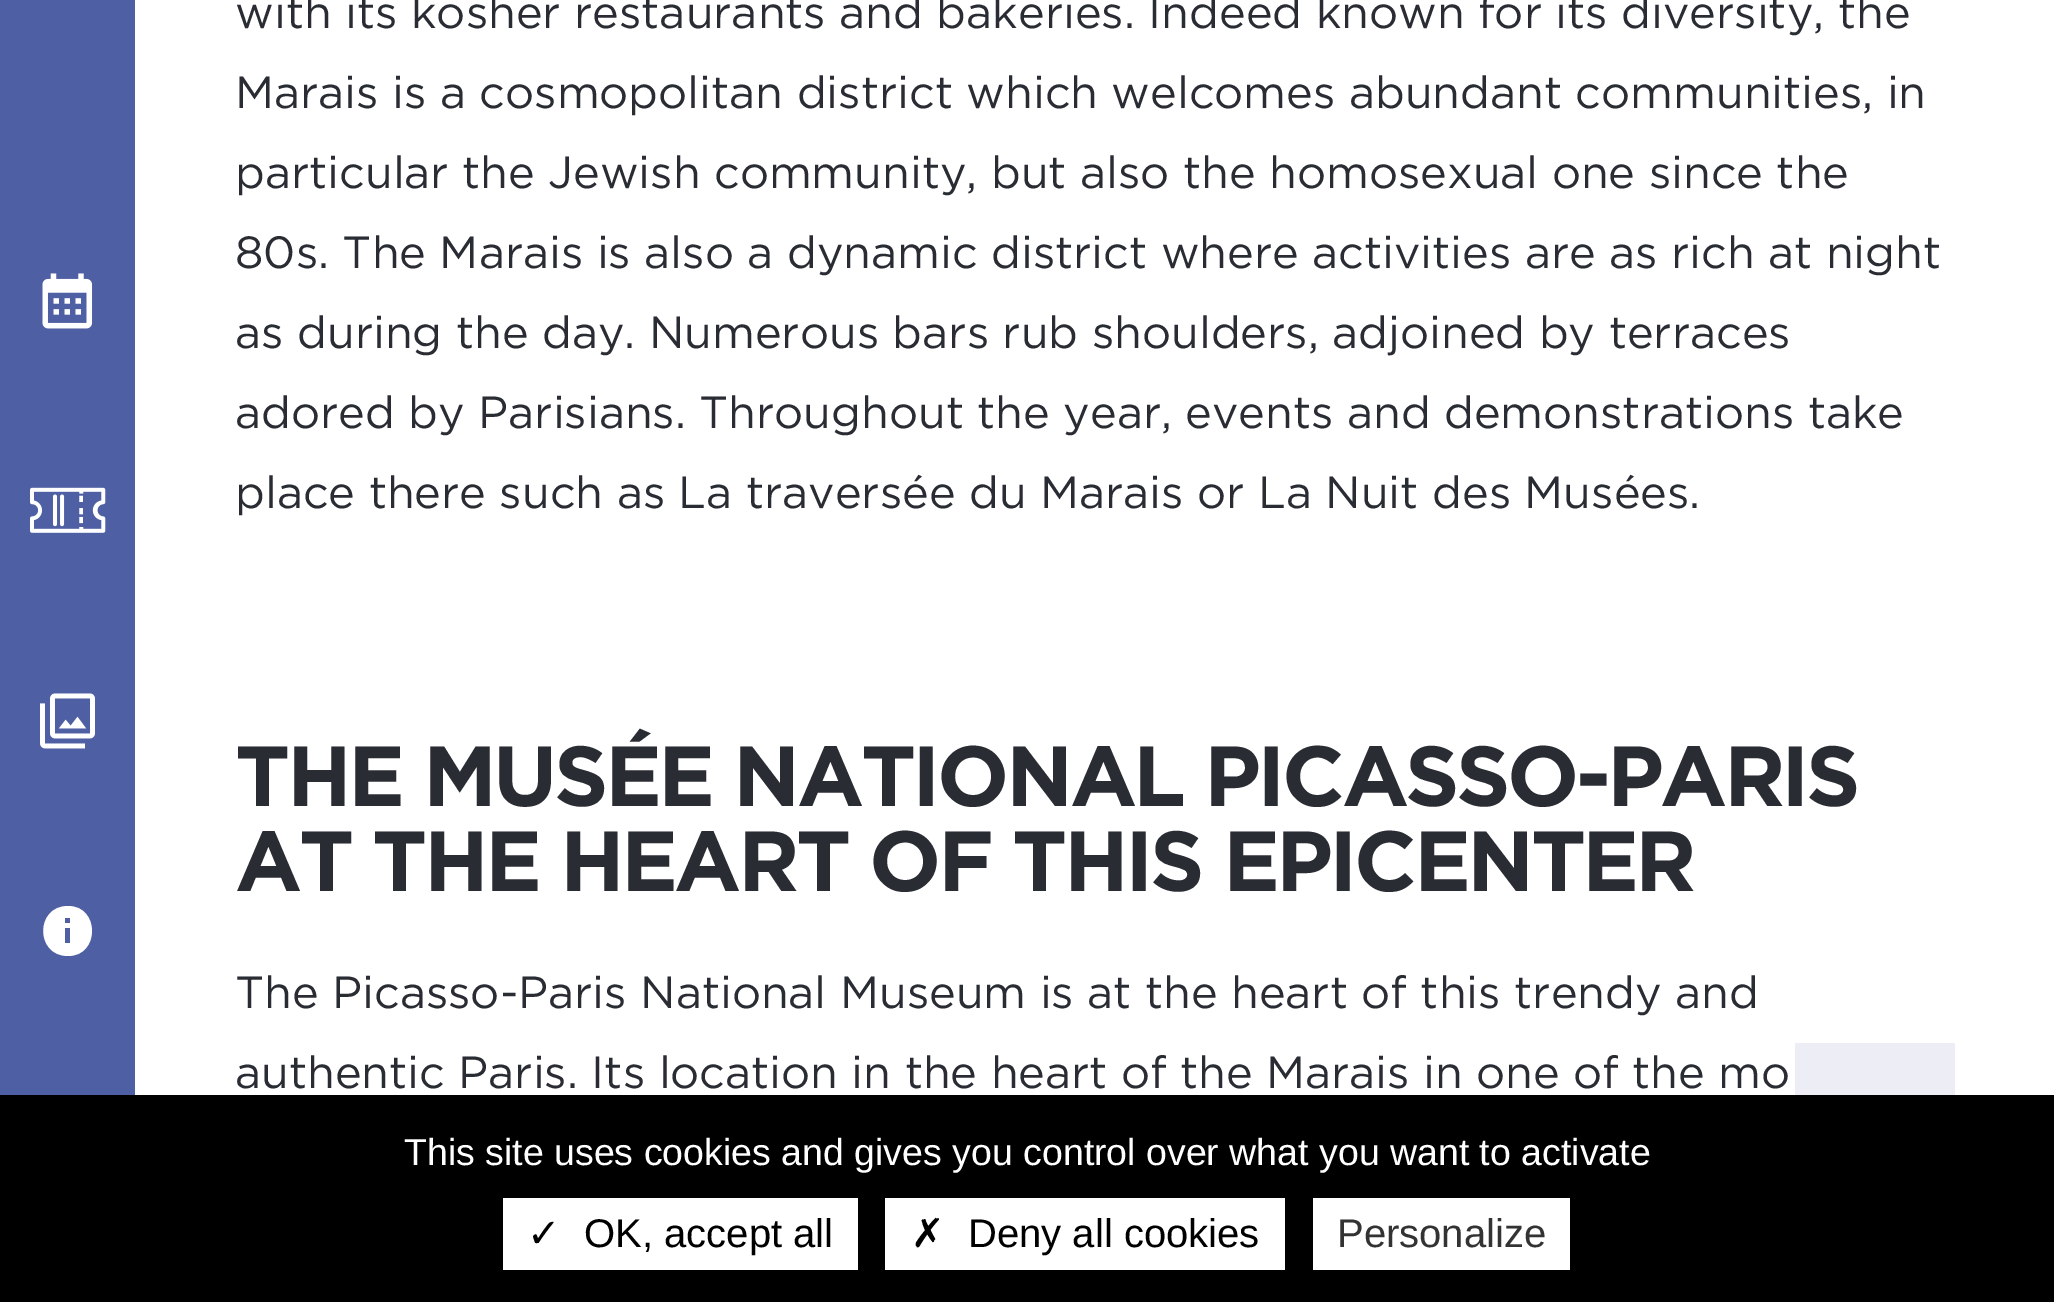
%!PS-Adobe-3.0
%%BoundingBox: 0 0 2054 1302
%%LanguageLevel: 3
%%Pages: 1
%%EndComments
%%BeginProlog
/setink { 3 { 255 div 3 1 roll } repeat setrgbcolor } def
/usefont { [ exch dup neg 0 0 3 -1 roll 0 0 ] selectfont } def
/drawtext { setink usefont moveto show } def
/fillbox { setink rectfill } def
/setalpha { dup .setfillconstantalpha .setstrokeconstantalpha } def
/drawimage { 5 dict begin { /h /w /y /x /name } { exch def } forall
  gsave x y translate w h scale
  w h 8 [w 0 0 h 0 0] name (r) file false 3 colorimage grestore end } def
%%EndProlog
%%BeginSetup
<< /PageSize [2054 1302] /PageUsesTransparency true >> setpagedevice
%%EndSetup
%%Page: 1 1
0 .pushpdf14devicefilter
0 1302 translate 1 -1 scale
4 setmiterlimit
0 0 2054 1302 255 255 255 fillbox
0 0 135 1095 79 95 163 fillbox
(assets/img1.rgb) 42 273 51 56 drawimage
(assets/img2.rgb) 30 487 76 46 drawimage
(assets/img3.rgb) 40 693 55 56 drawimage
255 255 255 setink
68 956 moveto 35 956 35 906 68 906 curveto 100 906 100 956 68 956 curveto closepath 65 928 moveto 65 943 lineto 70 943 lineto 70 928 lineto closepath 65 918 moveto 65 923 lineto 70 923 lineto 70 918 lineto closepath fill
(with its kosher restaurants and bakeries. Indeed known for its diversity, the) 235 28 /Gotham-Regular 45 42 44 52 drawtext
(Marais is a cosmopolitan district which welcomes abundant communities, in) 235 108 /Gotham-Regular 45 42 44 52 drawtext
(particular the Jewish community, but also the homosexual one since the) 235 188 /Gotham-Regular 45 42 44 52 drawtext
(80s. The Marais is also a dynamic district where activities are as rich at night) 235 268 /Gotham-Regular 45 42 44 52 drawtext
(as during the day. Numerous bars rub shoulders, adjoined by terraces) 235 348 /Gotham-Regular 45 42 44 52 drawtext
(adored by Parisians. Throughout the year, events and demonstrations take) 235 428 /Gotham-Regular 45 42 44 52 drawtext
(place there such as La traversée du Marais or La Nuit des Musées.) 235 508 /Gotham-Regular 45 42 44 52 drawtext
/Gotham-Bold 85 usefont
235 806 moveto -3.55 0 (THE MUSÉE NATIONAL PICASSO-PARIS) ashow
235 891 moveto -3.55 0 (AT THE HEART OF THIS EPICENTER) ashow
(The Picasso-Paris National Museum is at the heart of this trendy and) 235 1008 /Gotham-Regular 45 42 44 52 drawtext
(authentic Paris. Its location in the heart of the Marais in one of the mo) 235 1088 /Gotham-Regular 45 42 44 52 drawtext
0.11 setalpha
1795 1043 160 52 79 95 163 fillbox
1 setalpha
0 1095 2054 207 0 0 0 fillbox
(This site uses cookies and gives you control over what you want to activate) 404 1165 /LiberationSans-Regular 37.5 255 255 255 drawtext
503 1198 355 72 255 255 255 fillbox
(✓) 527 1247 /DejaVuSans-Regular 40 0 0 0 drawtext
(OK, accept all) 584 1247 /LiberationSans-Regular 40 0 0 0 drawtext
885 1198 400 72 255 255 255 fillbox
(✗) 911 1247 /DejaVuSans-Regular 40 0 0 0 drawtext
(Deny all cookies) 968 1247 /LiberationSans-Regular 40 0 0 0 drawtext
1313 1198 257 72 255 255 255 fillbox
(Personalize) 1337 1247 /LiberationSans-Regular 40 51 51 51 drawtext
.poppdf14devicefilter showpage
%%EOF
